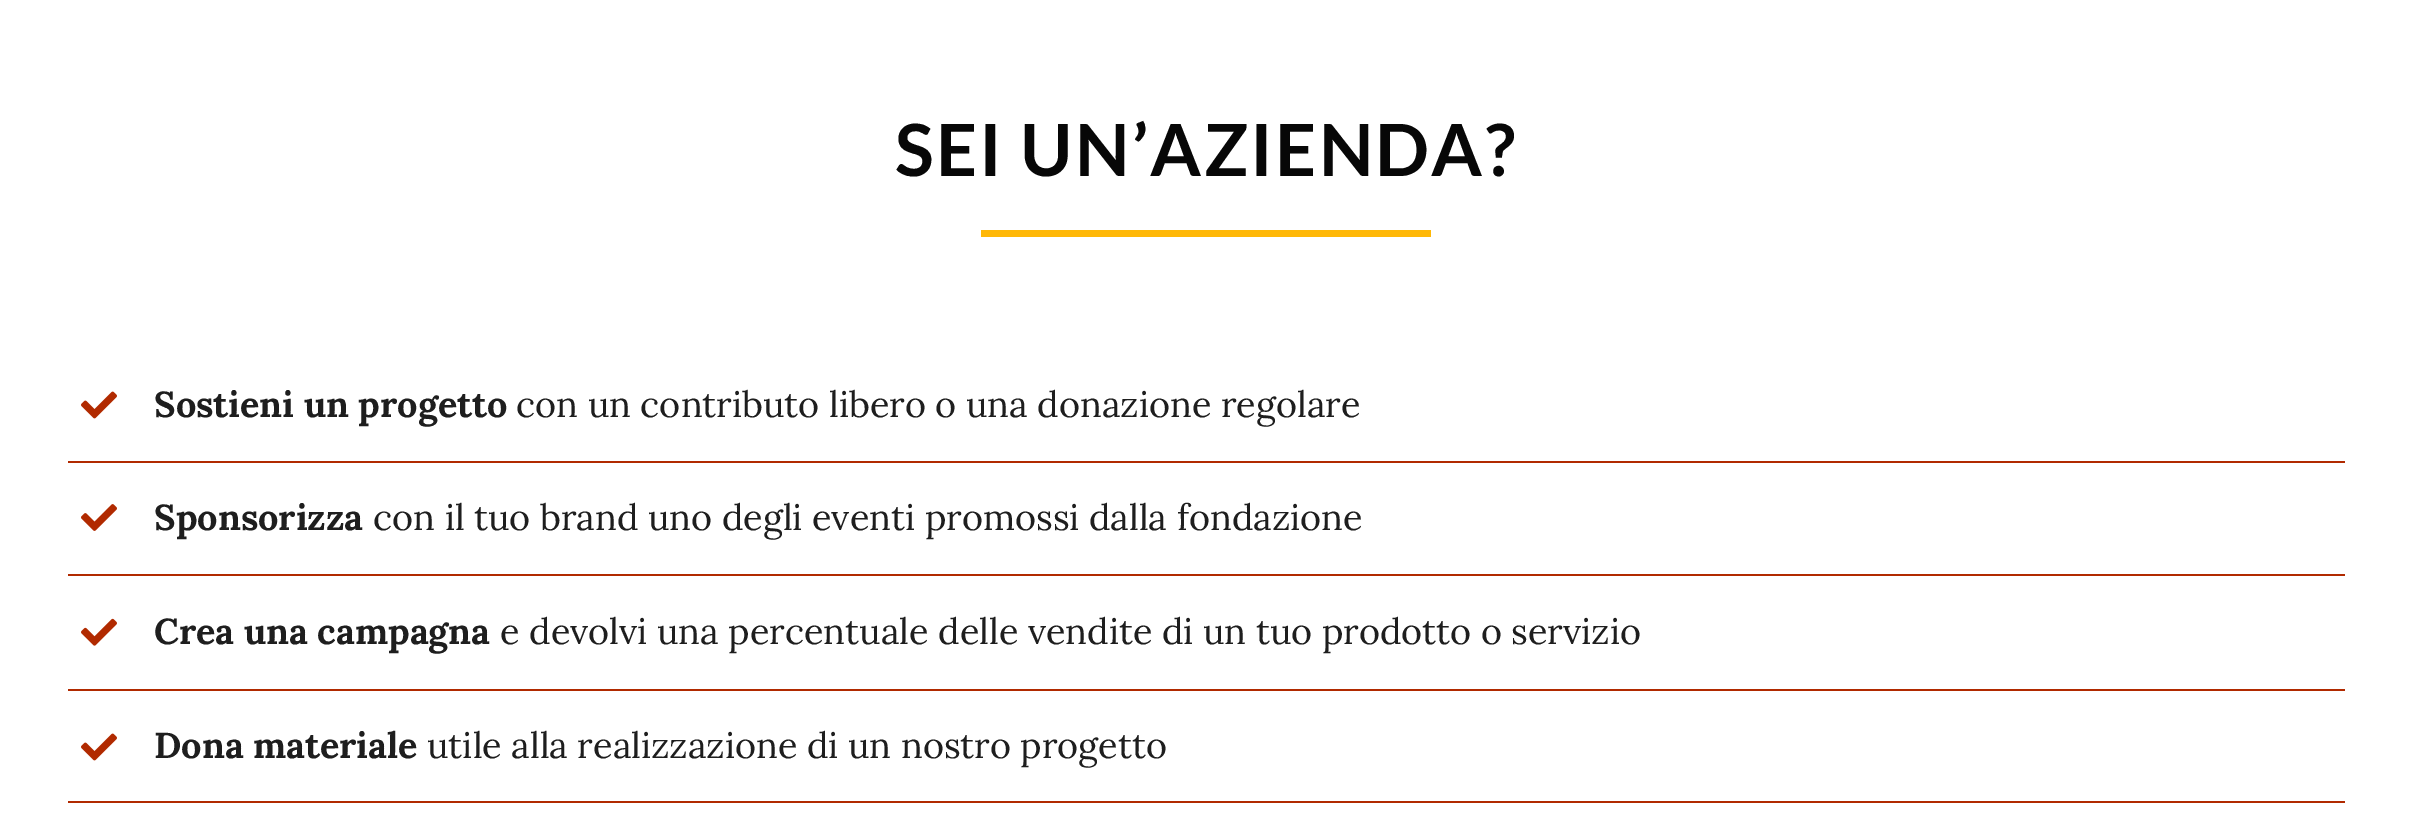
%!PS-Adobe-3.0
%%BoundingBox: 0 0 2410 824
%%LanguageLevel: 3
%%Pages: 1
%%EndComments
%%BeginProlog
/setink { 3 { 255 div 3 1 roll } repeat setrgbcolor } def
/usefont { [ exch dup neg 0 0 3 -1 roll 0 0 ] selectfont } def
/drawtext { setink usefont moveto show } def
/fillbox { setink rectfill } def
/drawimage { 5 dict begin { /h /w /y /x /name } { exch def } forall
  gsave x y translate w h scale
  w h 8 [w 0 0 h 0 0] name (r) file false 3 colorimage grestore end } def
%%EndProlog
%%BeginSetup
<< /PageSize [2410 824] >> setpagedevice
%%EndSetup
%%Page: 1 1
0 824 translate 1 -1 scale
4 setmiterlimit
0 0 2410 824 255 255 255 fillbox
/Lato-Bold 72 usefont
7 7 7 setink
895 176 moveto 2.25 0 (SEI UN’AZIENDA?) ashow
981 230 450 7 255 184 7 fillbox
68 461 2277 2 177 42 0 fillbox
(assets/img1.rgb) 81 391 36 28 drawimage
(Sostieni un progetto) 154 417 /Lora-Bold 36 30 30 30 drawtext
(con un contributo libero o una donazione regolare) 516 417 /Lora-Regular 36 30 30 30 drawtext
68 574 2277 2 177 42 0 fillbox
(assets/img2.rgb) 81 504 36 27 drawimage
(Sponsorizza) 154 530 /Lora-Bold 36 30 30 30 drawtext
(con il tuo brand uno degli eventi promossi dalla fondazione) 373 530 /Lora-Regular 36 30 30 30 drawtext
68 689 2277 2 177 42 0 fillbox
(assets/img3.rgb) 81 618 36 28 drawimage
(Crea una campagna) 154 644 /Lora-Bold 36 30 30 30 drawtext
(e devolvi una percentuale delle vendite di un tuo prodotto o servizio) 500 644 /Lora-Regular 36 30 30 30 drawtext
68 801 2277 2 177 42 0 fillbox
(assets/img1.rgb) 81 733 36 28 drawimage
(Dona materiale) 154 758 /Lora-Bold 36 30 30 30 drawtext
(utile alla realizzazione di un nostro progetto) 427 758 /Lora-Regular 36 30 30 30 drawtext
showpage
%%EOF
